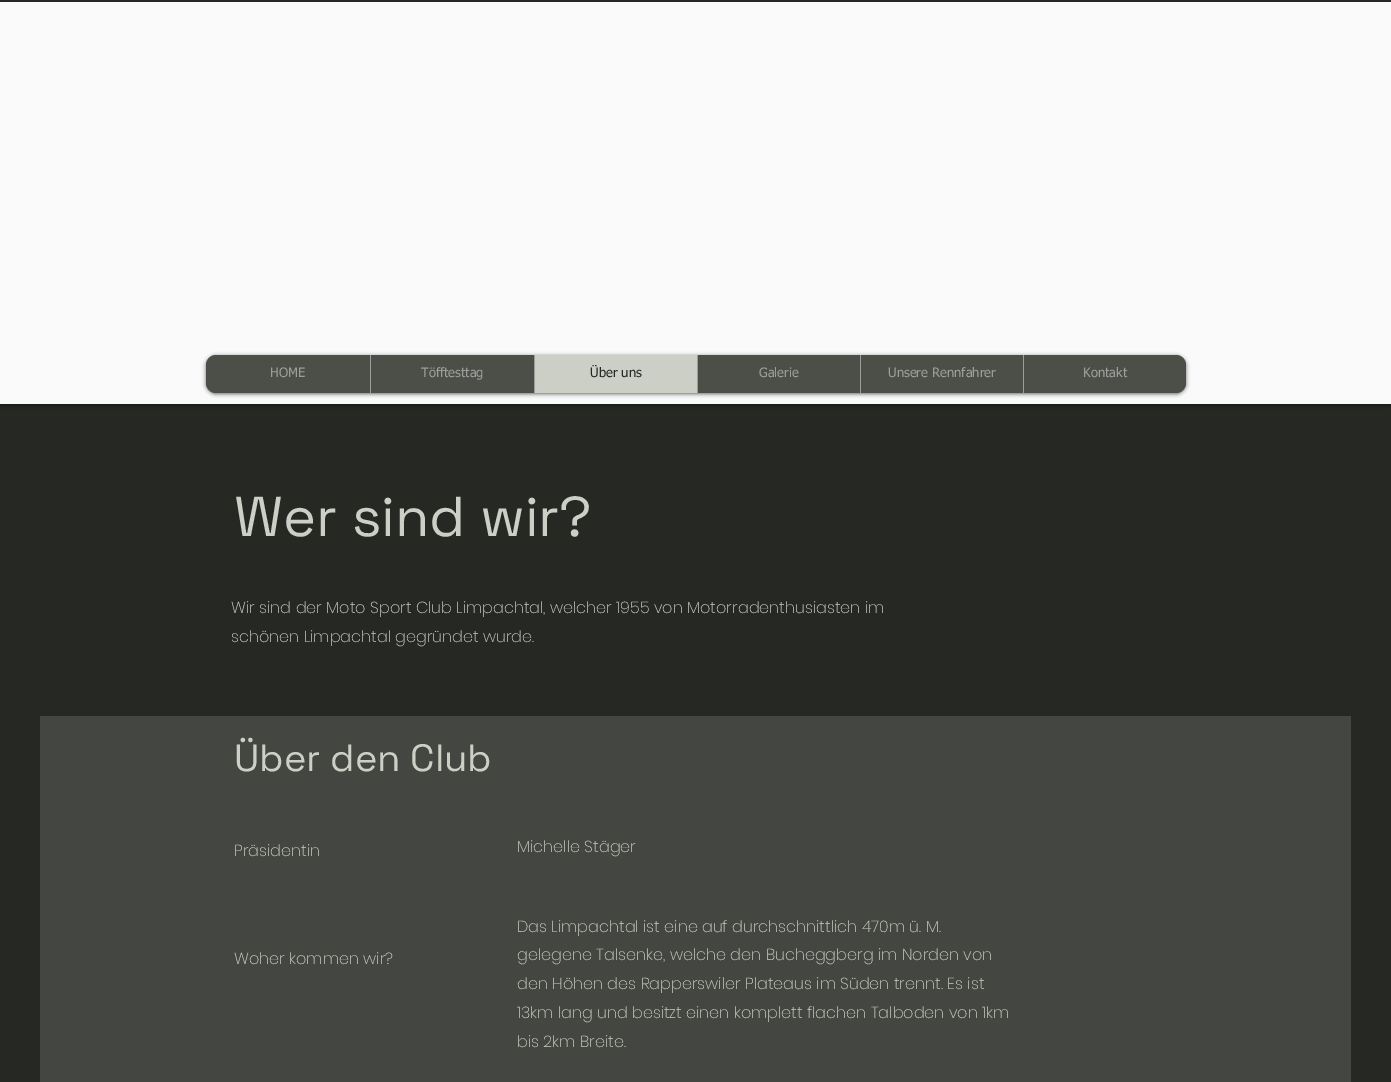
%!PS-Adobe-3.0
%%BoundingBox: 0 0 1391 1082
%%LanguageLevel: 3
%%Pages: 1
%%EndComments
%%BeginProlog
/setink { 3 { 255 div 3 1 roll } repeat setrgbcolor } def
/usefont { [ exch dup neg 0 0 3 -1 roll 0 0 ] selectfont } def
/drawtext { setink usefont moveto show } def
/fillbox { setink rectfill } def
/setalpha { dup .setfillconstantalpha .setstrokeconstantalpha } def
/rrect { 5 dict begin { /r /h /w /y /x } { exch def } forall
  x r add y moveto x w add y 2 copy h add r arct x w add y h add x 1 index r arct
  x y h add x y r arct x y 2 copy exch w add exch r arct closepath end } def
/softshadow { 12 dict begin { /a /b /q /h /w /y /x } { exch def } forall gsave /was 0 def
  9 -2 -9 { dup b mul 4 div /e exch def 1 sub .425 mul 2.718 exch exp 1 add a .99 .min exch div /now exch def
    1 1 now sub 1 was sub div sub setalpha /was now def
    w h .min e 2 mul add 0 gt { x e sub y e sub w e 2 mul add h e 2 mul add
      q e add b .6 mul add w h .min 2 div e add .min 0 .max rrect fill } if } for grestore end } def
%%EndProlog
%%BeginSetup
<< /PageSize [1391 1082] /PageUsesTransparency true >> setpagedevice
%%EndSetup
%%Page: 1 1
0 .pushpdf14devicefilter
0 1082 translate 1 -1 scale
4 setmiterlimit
0 0 1391 1082 38 40 36 fillbox
gsave
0 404 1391 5 rectclip
0 0 0 setink
0 0 1391 404 0 2.5 0.7 softshadow
grestore
0 2 1391 402 250 250 250 fillbox
0 0 0 setink
206 356 980 38 10 2 0.6 softshadow
76 79 72 setink
206 355 980 38 10 rrect fill
(HOME) 270 377 /tahoma-Regular 13 157 157 157 drawtext
370 355 1 38 157 157 157 fillbox
(Töfftesttag) 421 377 /tahoma-Regular 13 157 157 157 drawtext
535 355 162 38 203 207 197 fillbox
534 355 1 38 157 157 157 fillbox
(Über uns) 590 377 /tahoma-Regular 13 38 40 36 drawtext
697 355 1 38 157 157 157 fillbox
(Galerie) 759 377 /tahoma-Regular 13 157 157 157 drawtext
860 355 1 38 157 157 157 fillbox
(Unsere Rennfahrer) 888 377 /tahoma-Regular 13 157 157 157 drawtext
1023 355 1 38 157 157 157 fillbox
(Kontakt) 1083 377 /tahoma-Regular 13 157 157 157 drawtext
(Wer sind wir?) 234 536 /SpaceGrotesk-Regular 56 203 207 197 drawtext
(Wir sind der Moto Sport Club Limpachtal, welcher 1955 von Motorradenthusiasten im) 231 613 /Poppins-ExtraLight 16 203 207 197 drawtext
(schönen Limpachtal gegründet wurde.) 231 642 /Poppins-ExtraLight 16 203 207 197 drawtext
40 716 1311 366 68 71 65 fillbox
(Über den Club) 234 771 /SpaceGrotesk-Regular 38 203 207 197 drawtext
(Präsidentin) 234 856 /Poppins-ExtraLight 16 203 207 197 drawtext
(Michelle Stäger) 517 852 /Poppins-ExtraLight 16 203 207 197 drawtext
(Woher kommen wir?) 234 964 /Poppins-ExtraLight 16 203 207 197 drawtext
(Das Limpachtal ist eine auf durchschnittlich 470m ü. M.) 517 932 /Poppins-ExtraLight 16 203 207 197 drawtext
(gelegene Talsenke, welche den Bucheggberg im Norden von) 517 960 /Poppins-ExtraLight 16 203 207 197 drawtext
(den Höhen des Rapperswiler Plateaus im Süden trennt. Es ist) 517 989 /Poppins-ExtraLight 16 203 207 197 drawtext
(13km lang und besitzt einen komplett flachen Talboden von 1km) 517 1018 /Poppins-ExtraLight 16 203 207 197 drawtext
(bis 2km Breite.) 517 1047 /Poppins-ExtraLight 16 203 207 197 drawtext
.poppdf14devicefilter showpage
%%EOF
